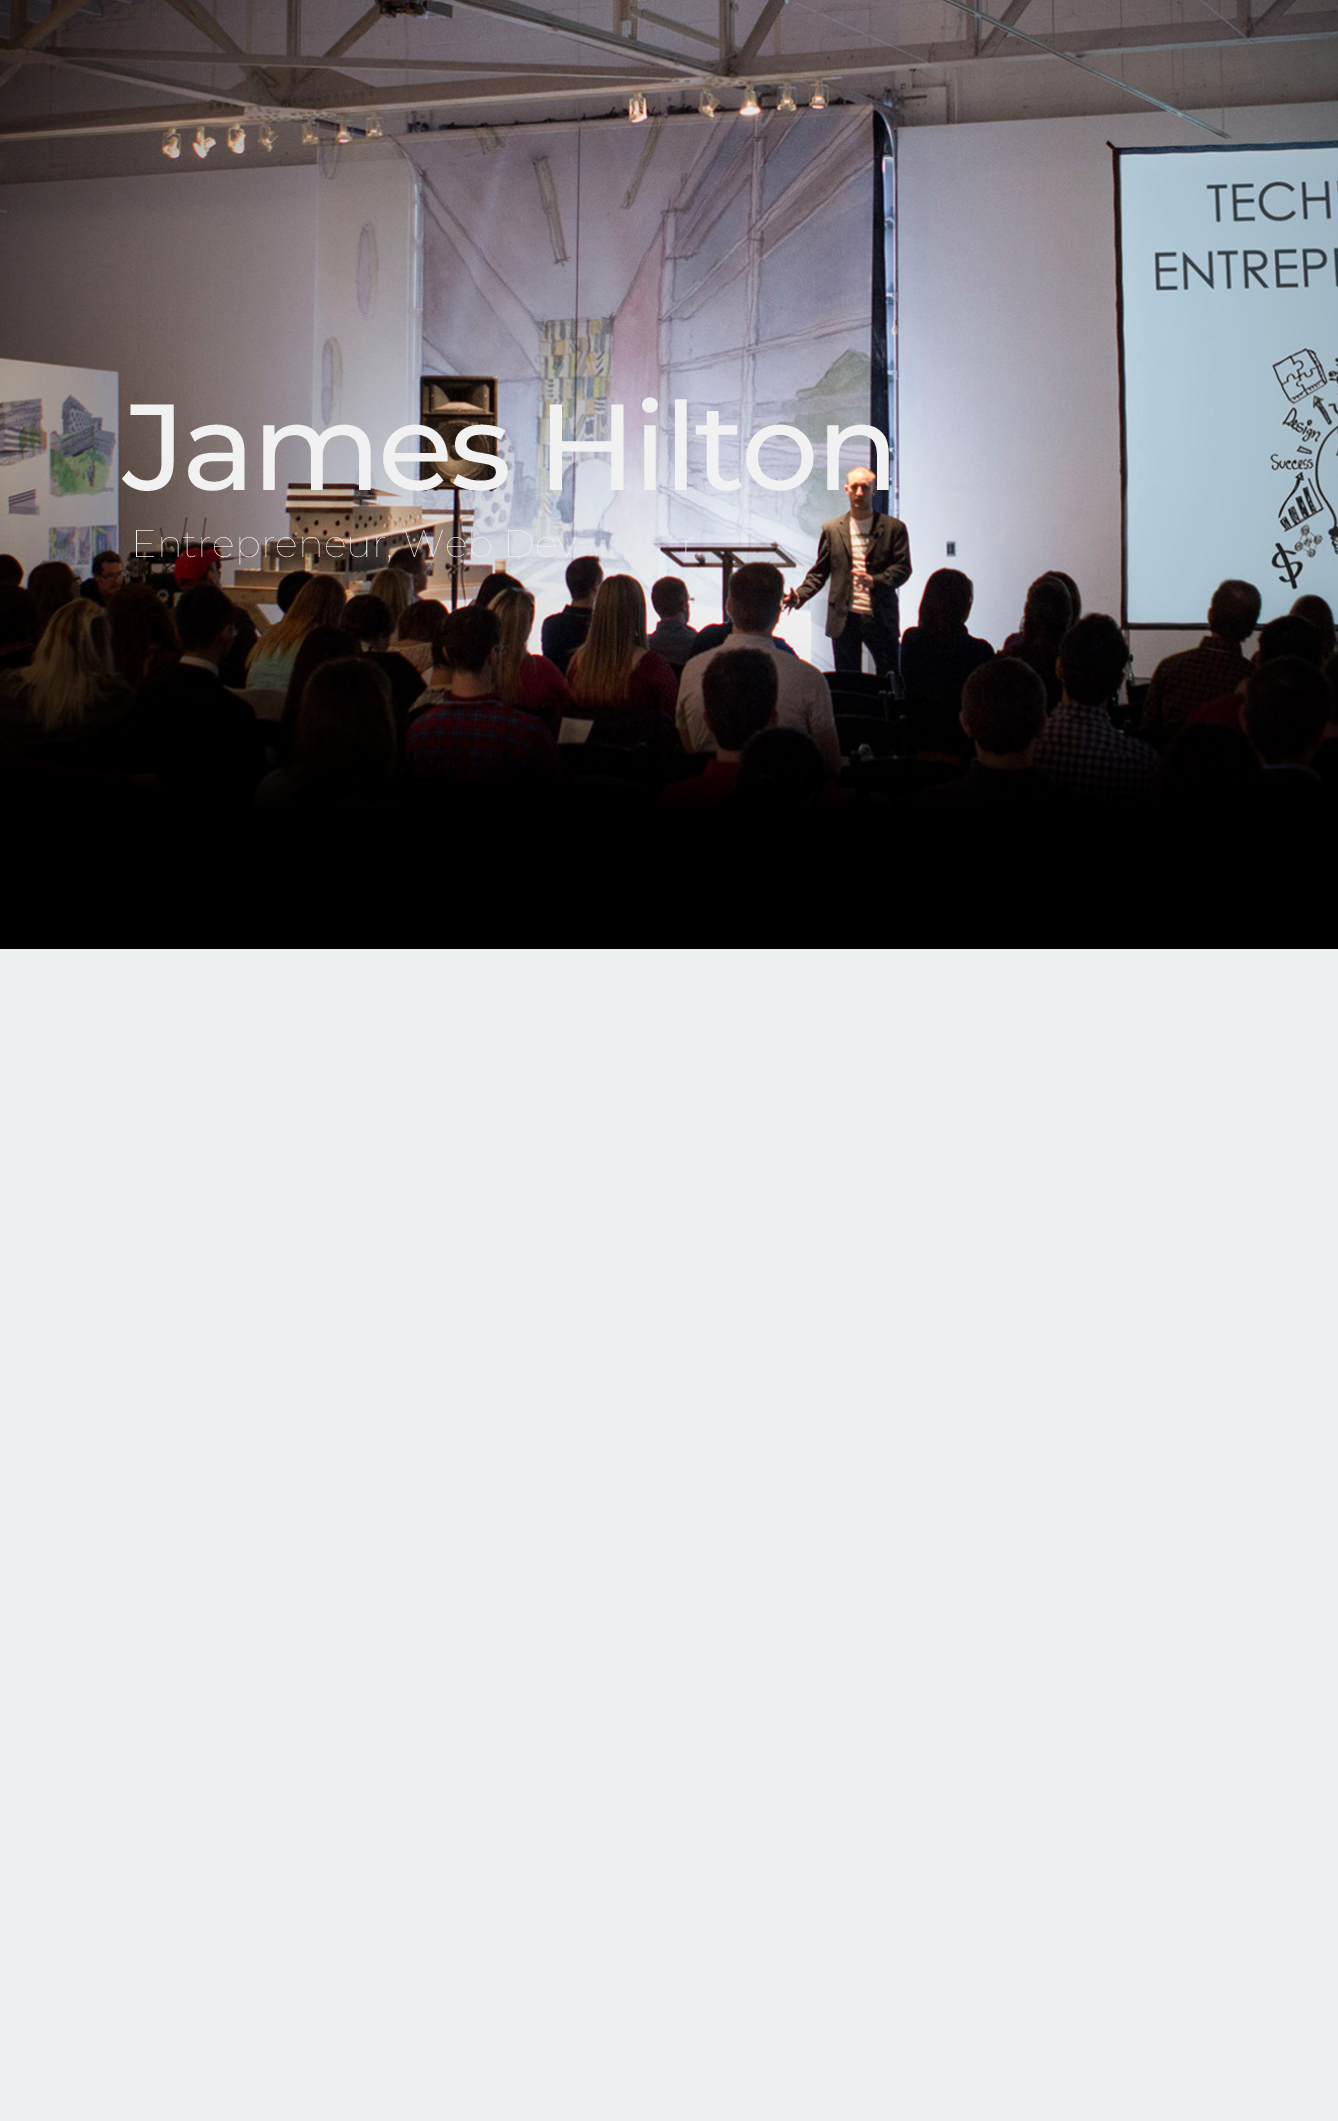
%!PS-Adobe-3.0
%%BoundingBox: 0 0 1338 2121
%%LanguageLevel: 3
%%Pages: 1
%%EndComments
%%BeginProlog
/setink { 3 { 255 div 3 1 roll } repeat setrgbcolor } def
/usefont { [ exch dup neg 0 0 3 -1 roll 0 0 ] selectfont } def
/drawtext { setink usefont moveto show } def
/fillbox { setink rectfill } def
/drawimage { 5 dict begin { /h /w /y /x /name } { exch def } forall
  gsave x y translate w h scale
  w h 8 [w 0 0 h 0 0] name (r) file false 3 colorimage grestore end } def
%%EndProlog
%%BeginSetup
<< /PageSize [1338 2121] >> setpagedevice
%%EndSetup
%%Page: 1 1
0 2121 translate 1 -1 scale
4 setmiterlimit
0 0 1338 2121 236 240 241 fillbox
0 808 1338 141 0 0 0 fillbox
(assets/img1.rgb) 0 0 1338 808 drawimage
/Montserrat-Medium 122.5 usefont
241 241 241 setink
123 490 moveto -3.5 0 (James Hilton) ashow
(Entrepreneur, Web Dev) 131 557 /Montserrat-Thin 38.5 241 241 241 drawtext
(r) 681 557 /Montserrat-Thin 38.5 241 241 241 drawtext
showpage
%%EOF
